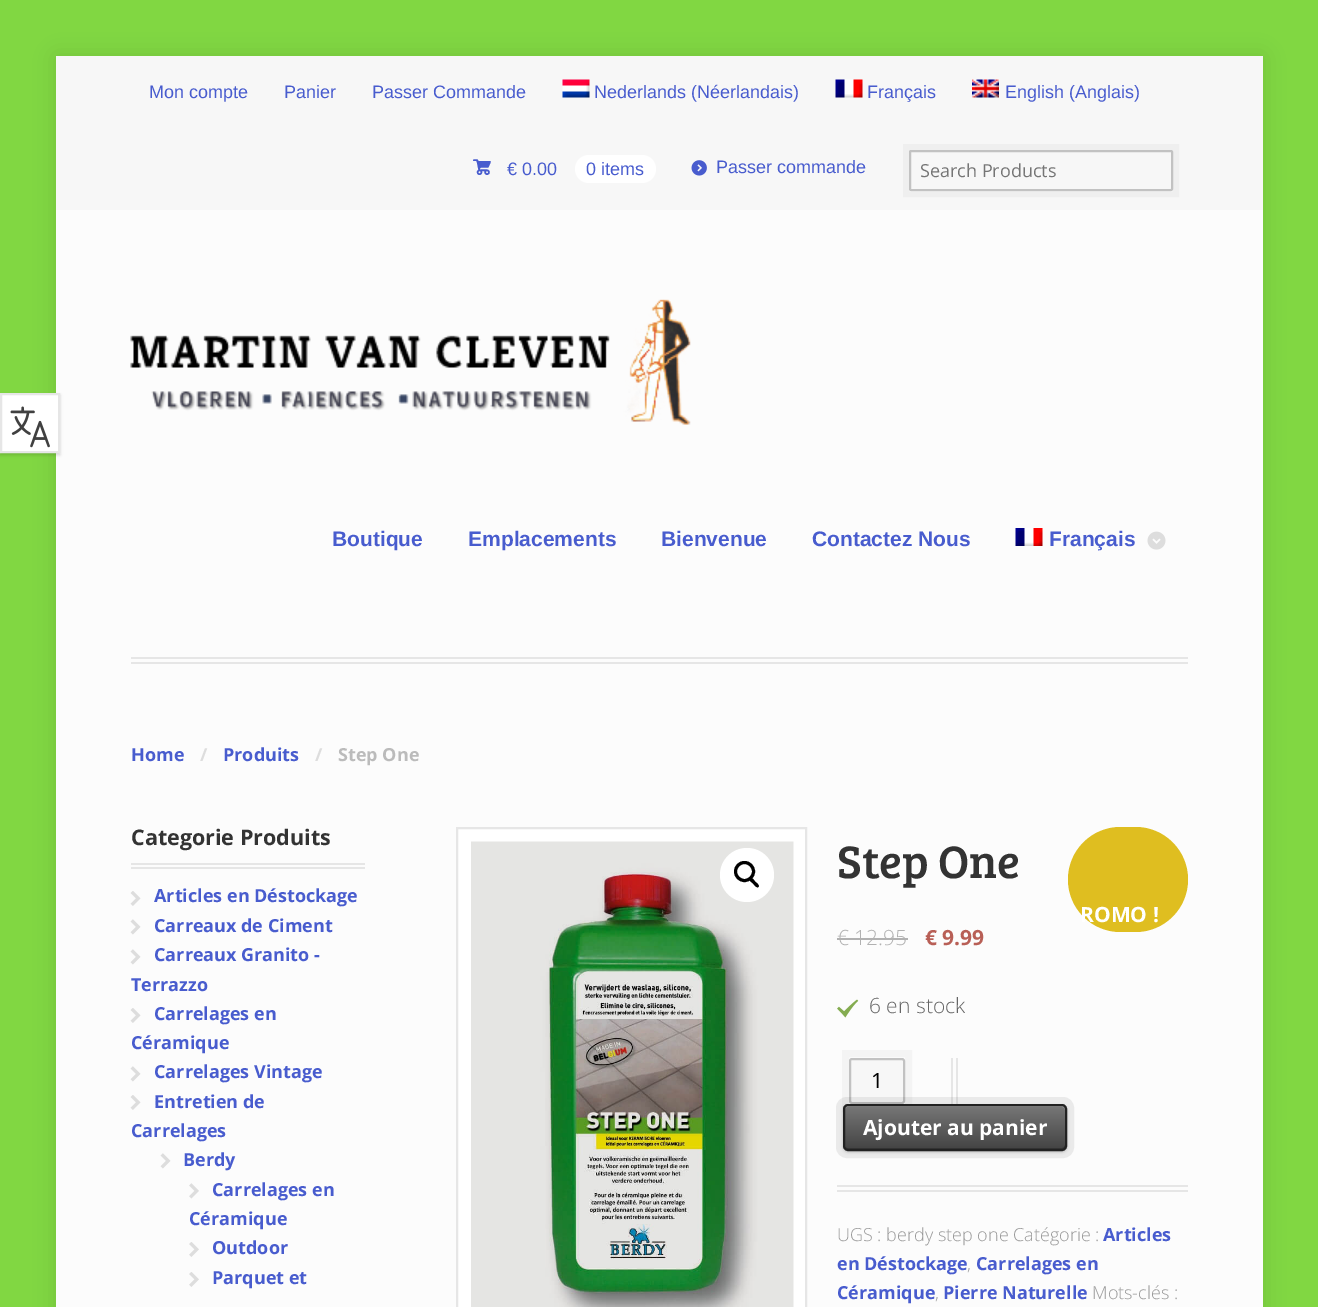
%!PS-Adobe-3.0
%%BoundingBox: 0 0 1318 1307
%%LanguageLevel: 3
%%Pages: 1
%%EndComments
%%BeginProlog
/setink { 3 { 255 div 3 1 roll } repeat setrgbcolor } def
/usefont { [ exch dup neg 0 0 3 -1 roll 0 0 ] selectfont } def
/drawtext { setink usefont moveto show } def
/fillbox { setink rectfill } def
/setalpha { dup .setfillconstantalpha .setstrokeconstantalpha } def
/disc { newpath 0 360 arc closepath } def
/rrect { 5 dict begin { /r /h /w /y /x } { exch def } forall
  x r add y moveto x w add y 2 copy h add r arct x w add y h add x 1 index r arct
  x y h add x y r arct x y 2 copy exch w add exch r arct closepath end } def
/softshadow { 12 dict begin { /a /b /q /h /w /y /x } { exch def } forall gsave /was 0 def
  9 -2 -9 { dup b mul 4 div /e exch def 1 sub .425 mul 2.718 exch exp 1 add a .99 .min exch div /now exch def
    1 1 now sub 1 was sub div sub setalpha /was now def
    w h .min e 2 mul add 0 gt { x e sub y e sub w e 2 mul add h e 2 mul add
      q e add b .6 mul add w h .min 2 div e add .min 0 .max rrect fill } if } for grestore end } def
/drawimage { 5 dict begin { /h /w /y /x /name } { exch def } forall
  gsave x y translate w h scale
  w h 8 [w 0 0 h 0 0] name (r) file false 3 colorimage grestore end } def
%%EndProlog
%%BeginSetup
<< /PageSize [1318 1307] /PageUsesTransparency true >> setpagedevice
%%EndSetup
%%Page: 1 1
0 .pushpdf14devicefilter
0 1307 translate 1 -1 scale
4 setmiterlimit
0 0 1318 1307 129 215 66 fillbox
0 0 0 setink
56 56 1207 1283 0 10.5 0.1 softshadow
56 210 1207 1097 252 252 252 fillbox
0 0 0 setink
0 395 60 60 0 1.5 0.15 softshadow
255 255 255 setink
1 394 moveto 59 394 lineto 59 452 lineto 1 452 lineto closepath gsave fill grestore
230 230 230 setink
2 setlinewidth
stroke
(assets/img1.rgb) 10 406 40 42 drawimage
56 56 1207 154 247 247 247 fillbox
(Mon compte) 149 98 /LiberationSans-Regular 18 72 92 206 drawtext
(Panier) 284 98 /LiberationSans-Regular 18 72 92 206 drawtext
(Passer Commande) 372 98 /LiberationSans-Regular 18 72 92 206 drawtext
(assets/img2.rgb) 562 79 28 19 drawimage
(Nederlands \(Néerlandais\)) 594 98 /LiberationSans-Regular 18 72 92 206 drawtext
(assets/img3.rgb) 835 79 28 19 drawimage
(Français) 867 98 /LiberationSans-Regular 18 72 92 206 drawtext
(assets/img4.rgb) 972 79 27 19 drawimage
(English \(Anglais\)) 1005 98 /LiberationSans-Regular 18 72 92 206 drawtext
(£) 473 175 /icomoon-Regular 18 72 92 206 drawtext
(€ 0.00) 507 175 /LiberationSans-Regular 18 72 92 206 drawtext
255 255 255 setink
575 155 81 28 14 rrect fill
(0 items) 586 175 /LiberationSans-Regular 18 72 92 206 drawtext
(assets/img5.rgb) 691 160 16 16 drawimage
(Passer commande) 716 173 /LiberationSans-Regular 18 72 92 206 drawtext
255 255 255 setink
909 188 moveto 909 190 lineto 909 191 910 192 911 192 curveto 1171 192 lineto 1172 192 1173 191 1173 190 curveto 1173 188 lineto 1173 189 1172 190 1171 190 curveto 911 190 lineto 910 190 909 189 909 188 curveto closepath fill
0.03 setalpha
0 0 0 setink
6 setlinewidth
906 147 270 47 rectstroke
1 setalpha
247 247 247 setink
910 151 262 39 1 rrect gsave fill grestore
194 194 194 setink
2 setlinewidth
stroke
(Search Products) 920 177 /OpenSans-Regular 18 117 117 117 drawtext
131 657 1057 2 230 230 230 fillbox
131 662 1057 2 230 230 230 fillbox
(assets/img6.rgb) 130 299 561 126 drawimage
(Boutique) 332 546 /LiberationSans-Bold 21 72 92 206 drawtext
(Emplacements) 468 546 /LiberationSans-Bold 21 72 92 206 drawtext
(Bienvenue) 661 546 /LiberationSans-Bold 21 72 92 206 drawtext
(Contactez Nous) 812 546 /LiberationSans-Bold 21 72 92 206 drawtext
(assets/img7.rgb) 1015 528 28 18 drawimage
(Français) 1049 546 /LiberationSans-Bold 21 72 92 206 drawtext
(assets/img8.rgb) 1147 531 19 19 drawimage
(Home) 131 761 /OpenSans-Bold 18 72 92 206 drawtext
(/) 200 761 /OpenSans-Bold 18 221 221 221 drawtext
(Produits) 223 761 /OpenSans-Bold 18 72 92 206 drawtext
(/) 315 761 /OpenSans-Bold 18 221 221 221 drawtext
(Step One) 338 761 /OpenSans-Bold 18 187 187 187 drawtext
131 863 234 2 230 230 230 fillbox
131 867 234 2 230 230 230 fillbox
(Categorie Produits) 131 845 /OpenSans-Bold 21.5 51 51 51 drawtext
(assets/img9.rgb) 130 891 11 15 drawimage
(Articles en Déstockage) 154 902 /OpenSans-Bold 18 72 92 206 drawtext
(assets/img10.rgb) 130 919 11 16 drawimage
(Carreaux de Ciment) 154 932 /OpenSans-Bold 18 72 92 206 drawtext
(assets/img10.rgb) 130 949 11 16 drawimage
(Carreaux Granito -) 154 961 /OpenSans-Bold 18 72 92 206 drawtext
(Terrazzo) 131 991 /OpenSans-Bold 18 72 92 206 drawtext
(assets/img9.rgb) 130 1008 11 15 drawimage
(Carrelages en) 154 1020 /OpenSans-Bold 18 72 92 206 drawtext
(Céramique) 131 1049 /OpenSans-Bold 18 72 92 206 drawtext
(assets/img10.rgb) 130 1066 11 16 drawimage
(Carrelages Vintage) 154 1078 /OpenSans-Bold 18 72 92 206 drawtext
(assets/img9.rgb) 130 1095 11 15 drawimage
(Entretien de) 154 1108 /OpenSans-Bold 18 72 92 206 drawtext
(Carrelages) 131 1137 /OpenSans-Bold 18 72 92 206 drawtext
(assets/img10.rgb) 160 1153 11 16 drawimage
(Berdy) 183 1166 /OpenSans-Bold 18 72 92 206 drawtext
(assets/img11.rgb) 189 1183 10 16 drawimage
(Carrelages en) 212 1196 /OpenSans-Bold 18 72 92 206 drawtext
(Céramique) 189 1225 /OpenSans-Bold 18 72 92 206 drawtext
(assets/img12.rgb) 189 1242 10 15 drawimage
(Outdoor) 212 1254 /OpenSans-Bold 18 72 92 206 drawtext
(assets/img12.rgb) 189 1272 10 15 drawimage
(Parquet et) 212 1284 /OpenSans-Bold 18 72 92 206 drawtext
255 255 255 setink
457 828 moveto 806 828 lineto 806 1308 lineto 457 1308 lineto closepath gsave fill grestore
230 230 230 setink
stroke
(assets/img13.rgb) 471 841 323 466 drawimage
255 255 255 setink
747 875 27 disc fill
0 0 0 setink
3 setlinewidth
744.5 871.5 9 disc stroke
750 878.5 moveto 751.5 876.5 754.5 880.5 755 881.5 curveto 756 882.5 760 885 758.5 887 curveto 756.5 888.5 754 884.5 753 883.5 curveto 752 882.5 748 880 750 878.5 curveto closepath fill
(Step One) 837 878 /BreeSerif-Regular 47 51 51 51 drawtext
(€ 12.95) 837 945 /OpenSans-Light 21 177 177 177 drawtext
837 938 71 2 177 177 177 fillbox
(€ 9.99) 925 945 /OpenSans-Bold 21 184 95 86 drawtext
(assets/img14.rgb) 837 999 22 19 drawimage
(6 en stock) 869 1013 /OpenSans-Light 21 102 102 102 drawtext
951 1058 2 46 230 230 230 fillbox
956 1058 2 46 230 230 230 fillbox
255 255 255 setink
849 1101 moveto 849 1103 lineto 849 1105 850 1106 852 1106 curveto 902 1106 lineto 904 1106 905 1105 905 1103 curveto 905 1062 lineto 904 1060 lineto 904 1101 lineto 904 1103 903 1104 902 1104 curveto 852 1104 lineto 850 1104 849 1103 849 1101 curveto closepath fill
0.03 setalpha
0 0 0 setink
7 setlinewidth
845.5 1053.5 63 55 rectstroke
1 setalpha
247 247 247 setink
850 1059 54 44 2 rrect gsave fill grestore
194 194 194 setink
2 setlinewidth
stroke
(1) 871 1088 /OpenSans-Regular 21 0 0 0 drawtext
843 1106 224 46 5 1.5 0.2 softshadow
0.07 setalpha
7 setlinewidth
839.5 1100.5 231 54 7.5 rrect stroke
1 setalpha
gsave 845 1106 220 43 3 rrect clip newpath
<< /ShadingType 2 /ColorSpace /DeviceRGB /Coords [955 1106 955 1149] /Extend [true true] /Function << /FunctionType 2 /Domain [0 1] /C0 [0.467 0.467 0.467] /C1 [0.267 0.267 0.267] /N 1 >> >> shfill grestore
51 51 51 setink
845 1147 moveto 846 1148 847 1149 848 1149 curveto 1062 1149 lineto 1064 1149 1065 1148 1065 1146 curveto 1065 1145 lineto 1065 1146 1064 1148 1062 1148 curveto 847 1148 lineto closepath fill
153 153 153 setink
847 1107 moveto 1062 1107 lineto 1064 1107 1065 1108 1065 1110 curveto 1065 1109 lineto 1065 1107 1064 1106 1062 1106 curveto 848 1106 lineto 847 1106 846 1107 845 1108 curveto closepath fill
34 34 34 setink
2 setlinewidth
844 1105 222 45 4 rrect stroke
(Ajouter au panier) 863 1135 /OpenSans-Bold 21 255 255 255 drawtext
837 1185 351 2 230 230 230 fillbox
837 1190 351 2 230 230 230 fillbox
(UGS : berdy step one Catégorie :) 837 1241 /OpenSans-Light 18 153 153 153 drawtext
(Articles) 1103 1241 /OpenSans-Bold 18 72 92 206 drawtext
(en Déstockage) 837 1270 /OpenSans-Bold 18 72 92 206 drawtext
(,) 967 1270 /OpenSans-Light 18 153 153 153 drawtext
(Carrelages en) 976 1270 /OpenSans-Bold 18 72 92 206 drawtext
(Céramique) 837 1299 /OpenSans-Bold 18 72 92 206 drawtext
(,) 935 1299 /OpenSans-Light 18 153 153 153 drawtext
(Pierre Naturelle) 943 1299 /OpenSans-Bold 18 72 92 206 drawtext
(Mots-clés :) 1092 1299 /OpenSans-Light 18 153 153 153 drawtext
223 190 32 setink
1068 827 120 105 52.5 rrect fill
(ROMO !) 1080 922 /OpenSans-Bold 21 255 255 255 drawtext
.poppdf14devicefilter showpage
%%EOF
